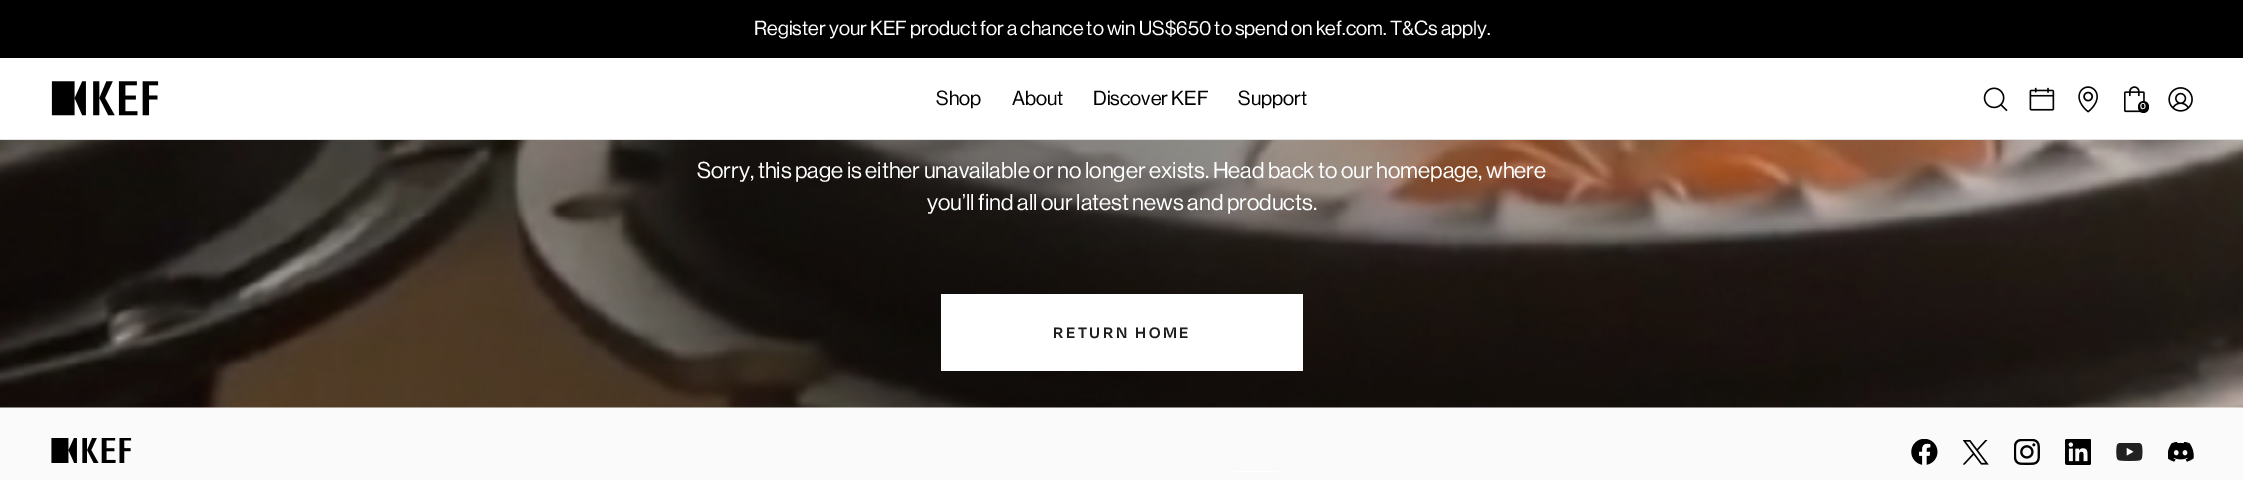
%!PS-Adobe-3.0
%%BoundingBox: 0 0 2243 480
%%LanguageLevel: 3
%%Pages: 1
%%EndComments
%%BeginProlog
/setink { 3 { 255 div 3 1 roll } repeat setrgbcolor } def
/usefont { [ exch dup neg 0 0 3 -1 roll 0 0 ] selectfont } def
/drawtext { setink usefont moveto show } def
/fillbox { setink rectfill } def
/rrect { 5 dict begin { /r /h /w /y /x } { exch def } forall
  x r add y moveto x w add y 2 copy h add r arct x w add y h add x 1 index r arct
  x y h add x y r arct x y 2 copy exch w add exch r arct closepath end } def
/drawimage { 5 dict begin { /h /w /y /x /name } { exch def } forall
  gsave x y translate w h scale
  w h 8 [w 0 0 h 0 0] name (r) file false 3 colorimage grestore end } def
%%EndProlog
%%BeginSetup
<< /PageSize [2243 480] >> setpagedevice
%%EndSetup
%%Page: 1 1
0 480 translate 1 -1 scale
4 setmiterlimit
0 0 2243 480 255 255 255 fillbox
0 0 2243 58 0 0 0 fillbox
(Register your KEF product for a chance to win US$650 to spend on kef.com. T&Cs apply.) 754 35 /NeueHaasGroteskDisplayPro-Regular 20 255 255 255 drawtext
0 139 2243 1 226 226 226 fillbox
(assets/img1.rgb) 51 81 108 35 drawimage
(Shop) 936 105 /NeueHaasGroteskDisplayPro-Regular 20 0 0 0 drawtext
(About) 1012 105 /NeueHaasGroteskDisplayPro-Regular 20 0 0 0 drawtext
(Discover KEF) 1093 105 /NeueHaasGroteskDisplayPro-Regular 20 0 0 0 drawtext
(Support) 1238 105 /NeueHaasGroteskDisplayPro-Regular 20 0 0 0 drawtext
(assets/img2.rgb) 1983 87 25 25 drawimage
(assets/img3.rgb) 2029 87 26 24 drawimage
(assets/img4.rgb) 2078 86 20 27 drawimage
(assets/img5.rgb) 2124 86 21 27 drawimage
2138 101 11 12 5.5 rrect fill
(0) 2140 109 /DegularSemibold-SemiBold 10 255 255 255 drawtext
(assets/img6.rgb) 2168 87 25 25 drawimage
(assets/img7.rgb) 0 140 2243 268 drawimage
(Sorry, this page is either unavailable or no longer exists. Head back to our homepage, where) 697 178 /NeueHaasGroteskDisplayPro-Regular 22.5 255 255 255 drawtext
(you’ll find all our latest news and products.) 927 210 /NeueHaasGroteskDisplayPro-Regular 22.5 255 255 255 drawtext
941 294 362 77 255 255 255 fillbox
/DegularSemibold-SemiBold 17.5 usefont
31 30 30 setink
1053 338 moveto 2.5 0 (RETURN HOME) ashow
0 408 2243 72 250 250 250 fillbox
1234 471 44 1 255 255 255 fillbox
(assets/img8.rgb) 51 438 81 25 drawimage
(assets/img9.rgb) 1911 439 27 26 drawimage
(assets/img10.rgb) 1963 440 26 25 drawimage
(assets/img11.rgb) 2014 439 26 26 drawimage
(assets/img12.rgb) 2065 439 26 26 drawimage
(assets/img13.rgb) 2116 443 27 18 drawimage
(assets/img14.rgb) 2168 442 26 20 drawimage
showpage
%%EOF
